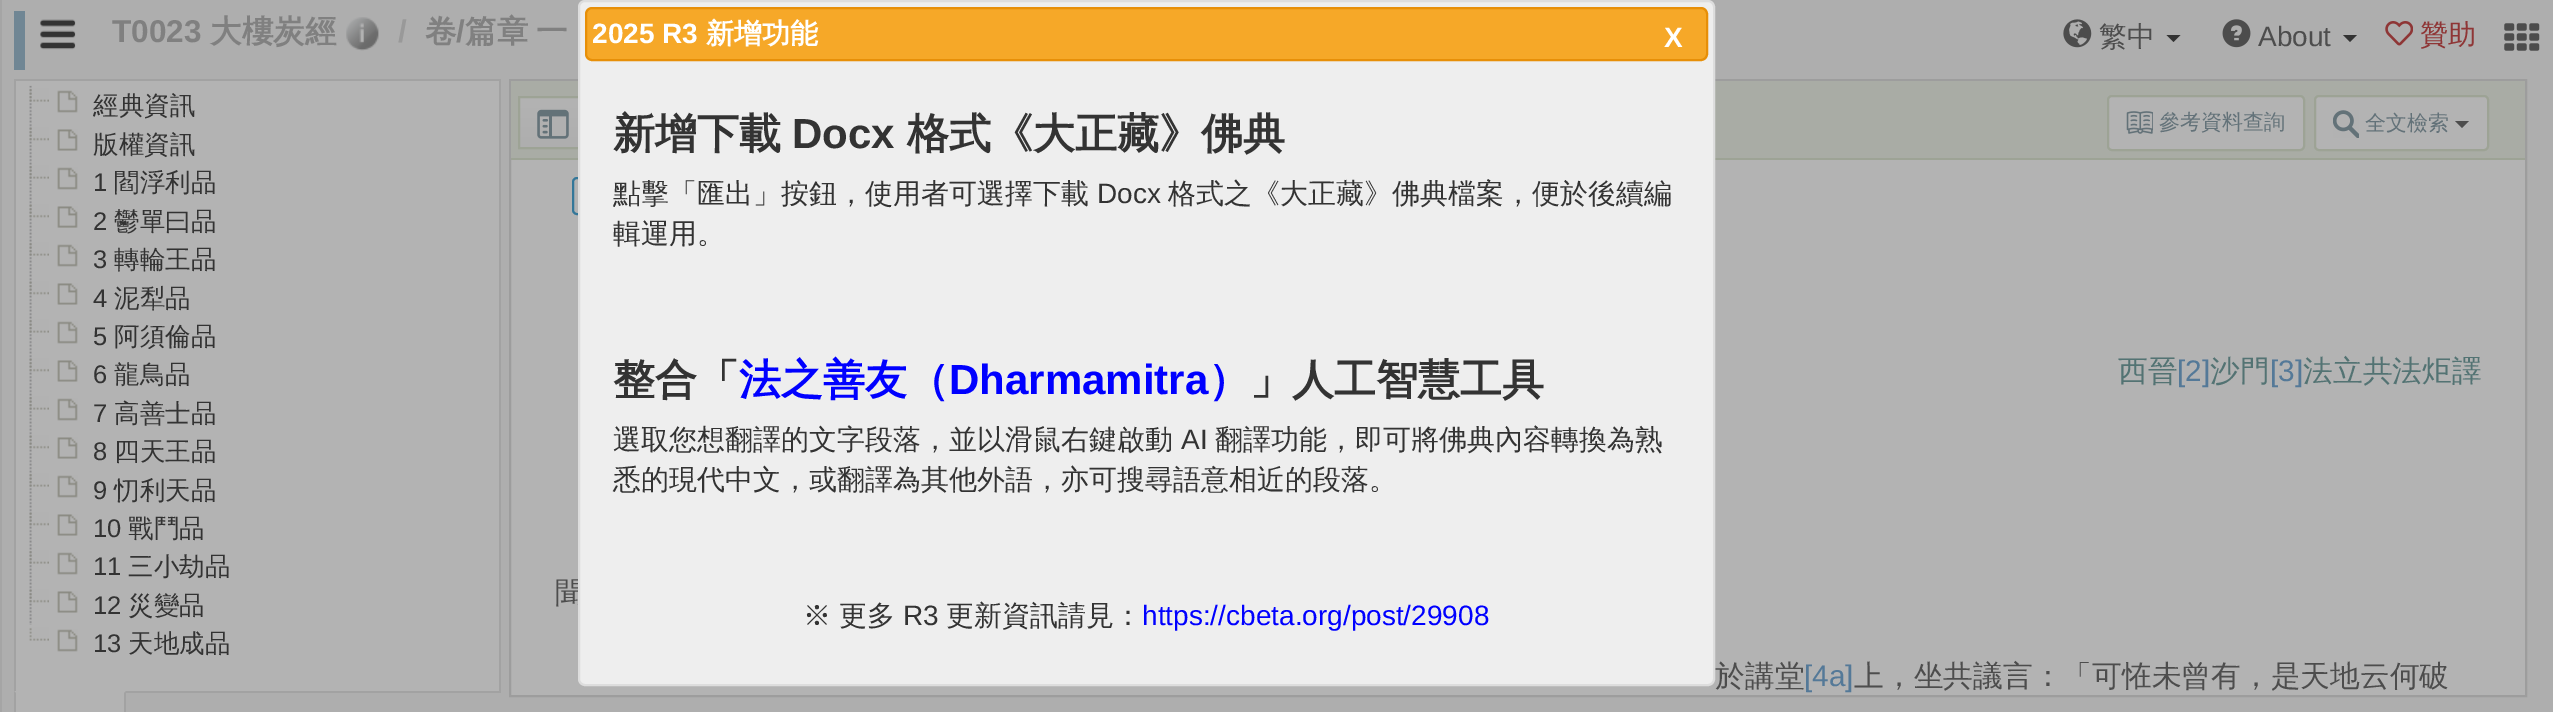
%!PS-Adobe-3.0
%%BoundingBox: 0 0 2553 712
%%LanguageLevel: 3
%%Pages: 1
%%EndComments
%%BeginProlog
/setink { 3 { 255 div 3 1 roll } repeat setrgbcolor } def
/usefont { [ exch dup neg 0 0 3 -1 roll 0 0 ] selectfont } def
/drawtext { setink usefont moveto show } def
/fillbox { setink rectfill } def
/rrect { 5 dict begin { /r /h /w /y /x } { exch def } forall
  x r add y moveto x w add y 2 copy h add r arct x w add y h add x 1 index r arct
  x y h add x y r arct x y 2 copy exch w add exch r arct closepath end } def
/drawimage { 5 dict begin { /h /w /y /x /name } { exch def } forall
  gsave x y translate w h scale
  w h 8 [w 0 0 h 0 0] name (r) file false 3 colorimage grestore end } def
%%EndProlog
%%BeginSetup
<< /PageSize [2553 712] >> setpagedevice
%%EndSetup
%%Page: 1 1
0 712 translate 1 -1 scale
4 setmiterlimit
0 0 2553 712 174 174 174 fillbox
0 0 2 712 165 165 165 fillbox
14 11 11 59 112 134 148 fillbox
(assets/img1.rgb) 40 19 36 31 drawimage
(T0023) 112 42 /LiberationSans-Bold 31.5 128 128 128 drawtext
(大樓炭經) 210 42 /WenQuanYiZenHei-Bold 31.5 128 128 128 drawtext
(assets/img2.rgb) 346 17 33 34 drawimage
(/) 398 42 /LiberationSans-Bold 31.5 153 153 153 drawtext
(卷) 425 42 /WenQuanYiZenHei-Bold 31.5 128 128 128 drawtext
(/) 456 42 /LiberationSans-Bold 31.5 128 128 128 drawtext
/WenQuanYiZenHei-Bold 31.5 usefont
465 42 moveto -1 0 32 (篇章 一) widthshow
(assets/img3.rgb) 2063 19 29 29 drawimage
(繁中) 2099 46 /WenQuanYiZenHei-Medium 28 77 77 77 drawtext
51 51 51 setink
2166.5 35 moveto 2180.5 35 lineto 2173.5 42 lineto closepath fill
(assets/img4.rgb) 2222 19 29 29 drawimage
(About) 2258 46 /LiberationSans-Regular 28 77 77 77 drawtext
51 51 51 setink
2343 35 moveto 2357 35 lineto 2350 42 lineto closepath fill
(assets/img5.rgb) 2385 21 28 25 drawimage
(贊助) 2420 44 /WenQuanYiZenHei-Medium 28 143 54 54 drawtext
(assets/img6.rgb) 2504 23 36 28 drawimage
16 81 483 610 179 179 179 fillbox
14 79 487 2 162 162 162 fillbox
499 79 2 612 162 162 162 fillbox
14 79 2 612 162 162 162 fillbox
(assets/img7.rgb) 29 85 3 40 drawimage
(assets/img8.rgb) 29 88 20 14 drawimage
(assets/img9.rgb) 57 90 21 23 drawimage
(經典資訊) 93 114 /WenQuanYiZenHei-Medium 25.5 51 51 51 drawtext
(assets/img10.rgb) 29 124 3 39 drawimage
(assets/img11.rgb) 29 127 20 14 drawimage
(assets/img12.rgb) 57 129 21 22 drawimage
(版權資訊) 93 153 /WenQuanYiZenHei-Medium 25.5 51 51 51 drawtext
(assets/img13.rgb) 29 162 3 40 drawimage
(assets/img8.rgb) 29 165 20 14 drawimage
(assets/img9.rgb) 57 167 21 23 drawimage
(1) 93 191 /LiberationSans-Regular 25.5 51 51 51 drawtext
(閻浮利品) 114 191 /WenQuanYiZenHei-Medium 25.5 51 51 51 drawtext
(assets/img10.rgb) 29 201 3 39 drawimage
(assets/img11.rgb) 29 204 20 14 drawimage
(assets/img14.rgb) 57 206 21 22 drawimage
(2) 93 230 /LiberationSans-Regular 25.5 51 51 51 drawtext
(鬱單曰品) 114 230 /WenQuanYiZenHei-Medium 25.5 51 51 51 drawtext
(assets/img13.rgb) 29 239 3 40 drawimage
(assets/img8.rgb) 29 242 20 14 drawimage
(assets/img9.rgb) 57 244 21 23 drawimage
(3) 93 268 /LiberationSans-Regular 25.5 51 51 51 drawtext
(轉輪王品) 114 268 /WenQuanYiZenHei-Medium 25.5 51 51 51 drawtext
(assets/img10.rgb) 29 278 3 39 drawimage
(assets/img11.rgb) 29 281 20 14 drawimage
(assets/img12.rgb) 57 283 21 22 drawimage
(4) 93 307 /LiberationSans-Regular 25.5 51 51 51 drawtext
(泥犁品) 114 307 /WenQuanYiZenHei-Medium 25.5 51 51 51 drawtext
(assets/img13.rgb) 29 316 3 40 drawimage
(assets/img8.rgb) 29 319 20 14 drawimage
(assets/img9.rgb) 57 321 21 23 drawimage
(5) 93 345 /LiberationSans-Regular 25.5 51 51 51 drawtext
(阿須倫品) 114 345 /WenQuanYiZenHei-Medium 25.5 51 51 51 drawtext
(assets/img10.rgb) 29 355 3 39 drawimage
(assets/img11.rgb) 29 358 20 14 drawimage
(assets/img12.rgb) 57 360 21 22 drawimage
(6) 93 383 /LiberationSans-Regular 25.5 51 51 51 drawtext
(龍鳥品) 114 383 /WenQuanYiZenHei-Medium 25.5 51 51 51 drawtext
(assets/img13.rgb) 29 393 3 40 drawimage
(assets/img8.rgb) 29 396 20 14 drawimage
(assets/img9.rgb) 57 398 21 23 drawimage
(7) 93 422 /LiberationSans-Regular 25.5 51 51 51 drawtext
(高善士品) 114 422 /WenQuanYiZenHei-Medium 25.5 51 51 51 drawtext
(assets/img10.rgb) 29 432 3 39 drawimage
(assets/img11.rgb) 29 435 20 14 drawimage
(assets/img12.rgb) 57 437 21 22 drawimage
(8) 93 460 /LiberationSans-Regular 25.5 51 51 51 drawtext
(四天王品) 114 460 /WenQuanYiZenHei-Medium 25.5 51 51 51 drawtext
(assets/img13.rgb) 29 470 3 40 drawimage
(assets/img8.rgb) 29 473 20 14 drawimage
(assets/img9.rgb) 57 475 21 23 drawimage
(9) 93 499 /LiberationSans-Regular 25.5 51 51 51 drawtext
(忉利天品) 114 499 /WenQuanYiZenHei-Medium 25.5 51 51 51 drawtext
(assets/img10.rgb) 29 509 3 39 drawimage
(assets/img11.rgb) 29 512 20 14 drawimage
(assets/img12.rgb) 57 514 21 22 drawimage
(10) 93 537 /LiberationSans-Regular 25.5 51 51 51 drawtext
(戰鬥品) 128 537 /WenQuanYiZenHei-Medium 25.5 51 51 51 drawtext
(assets/img13.rgb) 29 547 3 40 drawimage
(assets/img8.rgb) 29 550 20 14 drawimage
(assets/img9.rgb) 57 552 21 23 drawimage
(11) 93 575 /LiberationSans-Regular 25.5 51 51 51 drawtext
(三小劫品) 128 575 /WenQuanYiZenHei-Medium 25.5 51 51 51 drawtext
(assets/img10.rgb) 29 586 3 39 drawimage
(assets/img11.rgb) 29 589 20 14 drawimage
(assets/img12.rgb) 57 591 21 22 drawimage
(12) 93 614 /LiberationSans-Regular 25.5 51 51 51 drawtext
(災變品) 128 614 /WenQuanYiZenHei-Medium 25.5 51 51 51 drawtext
(assets/img15.rgb) 29 627 20 14 drawimage
(assets/img9.rgb) 57 629 21 23 drawimage
(13) 93 652 /LiberationSans-Regular 25.5 51 51 51 drawtext
(天地成品) 128 652 /WenQuanYiZenHei-Medium 25.5 51 51 51 drawtext
126 691 375 2 162 162 162 fillbox
14 691 112 21 179 179 179 fillbox
162 162 162 setink
126 691 moveto 126 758 lineto 124 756 lineto 124 693 lineto closepath fill
14 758 moveto 14 691 lineto 16 693 lineto 16 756 lineto closepath fill
511 160 2014 535 179 179 179 fillbox
157 157 157 setink
2 setlinewidth
510 80 2016 616 rectstroke
511 81 2014 77 169 172 165 fillbox
511 158 2014 2 157 163 149 fillbox
gsave 520 98 moveto 578 98 lineto 578 147 lineto 520 147 lineto closepath clip newpath
<< /ShadingType 2 /ColorSpace /DeviceRGB /Coords [553 98 553 147] /Extend [true true] /Function << /FunctionType 2 /Domain [0 1] /C0 [0.702 0.702 0.702] /C1 [0.682 0.682 0.682] /N 1 >> >> shfill grestore
519 97 68 51 rectstroke
(assets/img16.rgb) 537 109 32 30 drawimage
179 179 179 setink
2108 96 196 54 4 rrect gsave fill grestore
157 163 149 setink
stroke
(assets/img17.rgb) 2126 111 27 23 drawimage
(參考資料查詢) 2159 129 /WenQuanYiZenHei-Medium 21 99 114 121 drawtext
179 179 179 setink
2315 96 173 54 4 rrect gsave fill grestore
157 163 149 setink
stroke
(assets/img18.rgb) 2333 110 26 28 drawimage
(全文檢索) 2365 130 /WenQuanYiZenHei-Medium 21 99 114 121 drawtext
77 77 77 setink
2455 121 moveto 2469 121 lineto 2462 128 lineto closepath fill
51 119 153 setink
573 178 144 36 4 rrect stroke
(西晉) 2118 381 /WenQuanYiZenHei-Medium 29.75 83 115 115 drawtext
([2]) 2177 381 /LiberationSans-Regular 29.75 84 121 152 drawtext
(沙門) 2210 381 /WenQuanYiZenHei-Medium 29.75 83 115 115 drawtext
([3]) 2270 381 /LiberationSans-Regular 29.75 84 121 152 drawtext
(法立共法炬譯) 2303 381 /WenQuanYiZenHei-Medium 29.75 83 115 115 drawtext
(聞) 555 603 /WenQuanYiZenHei-Medium 29.75 77 77 77 drawtext
(於講堂) 1715 686 /WenQuanYiZenHei-Medium 29.75 77 77 77 drawtext
([4a]) 1804 686 /LiberationSans-Regular 29.75 84 121 152 drawtext
(上，坐共議言：「可恠未曾有，是天地云何破) 1854 686 /WenQuanYiZenHei-Medium 29.75 77 77 77 drawtext
238 238 238 setink
579 1 1135 684 6 rrect gsave fill grestore
221 221 221 setink
stroke
246 168 40 setink
586 8 1121 52 6 rrect gsave fill grestore
231 143 8 setink
stroke
(2025 R3) 592 43 /LiberationSans-Bold 28 255 255 255 drawtext
(新增功能) 706 43 /WenQuanYiZenHei-Bold 28 255 255 255 drawtext
(X) 1664 47 /LiberationSans-Bold 28 255 255 255 drawtext
(新增下載) 613 148 /WenQuanYiZenHei-Bold 42 51 51 51 drawtext
(Docx) 792 148 /LiberationSans-Bold 42 51 51 51 drawtext
(格式《大正藏》佛典) 907 148 /WenQuanYiZenHei-Bold 42 51 51 51 drawtext
(點擊「匯出」按鈕，使用者可選擇下載) 613 203 /WenQuanYiZenHei-Medium 28 51 51 51 drawtext
(Docx) 1097 203 /LiberationSans-Regular 28 51 51 51 drawtext
(格式之《大正藏》佛典檔案，便於後續編) 1168 203 /WenQuanYiZenHei-Medium 28 51 51 51 drawtext
(輯運用。) 613 243 /WenQuanYiZenHei-Medium 28 51 51 51 drawtext
(整合「) 613 394 /WenQuanYiZenHei-Bold 42 51 51 51 drawtext
(法之善友（) 739 394 /WenQuanYiZenHei-Bold 42 0 0 255 drawtext
(Dharmamitra) 949 394 /LiberationSans-Bold 42 0 0 255 drawtext
(）) 1208 394 /WenQuanYiZenHei-Bold 42 0 0 255 drawtext
(」人工智慧工具) 1250 394 /WenQuanYiZenHei-Bold 42 51 51 51 drawtext
(選取您想翻譯的文字段落，並以滑鼠右鍵啟動) 613 449 /WenQuanYiZenHei-Medium 28 51 51 51 drawtext
(AI) 1181 449 /LiberationSans-Regular 28 51 51 51 drawtext
(翻譯功能，即可將佛典內容轉換為熟) 1215 449 /WenQuanYiZenHei-Medium 28 51 51 51 drawtext
(悉的現代中文，或翻譯為其他外語，亦可搜尋語意相近的段落。) 613 489 /WenQuanYiZenHei-Medium 28 51 51 51 drawtext
(※ 更多) 803 625 /WenQuanYiZenHei-Medium 28 51 51 51 drawtext
(R3) 903 625 /LiberationSans-Regular 28 51 51 51 drawtext
(更新資訊請見：) 946 625 /WenQuanYiZenHei-Medium 28 51 51 51 drawtext
(https://cbeta.org/post/29908) 1142 625 /LiberationSans-Regular 28 0 0 255 drawtext
showpage
%%EOF
